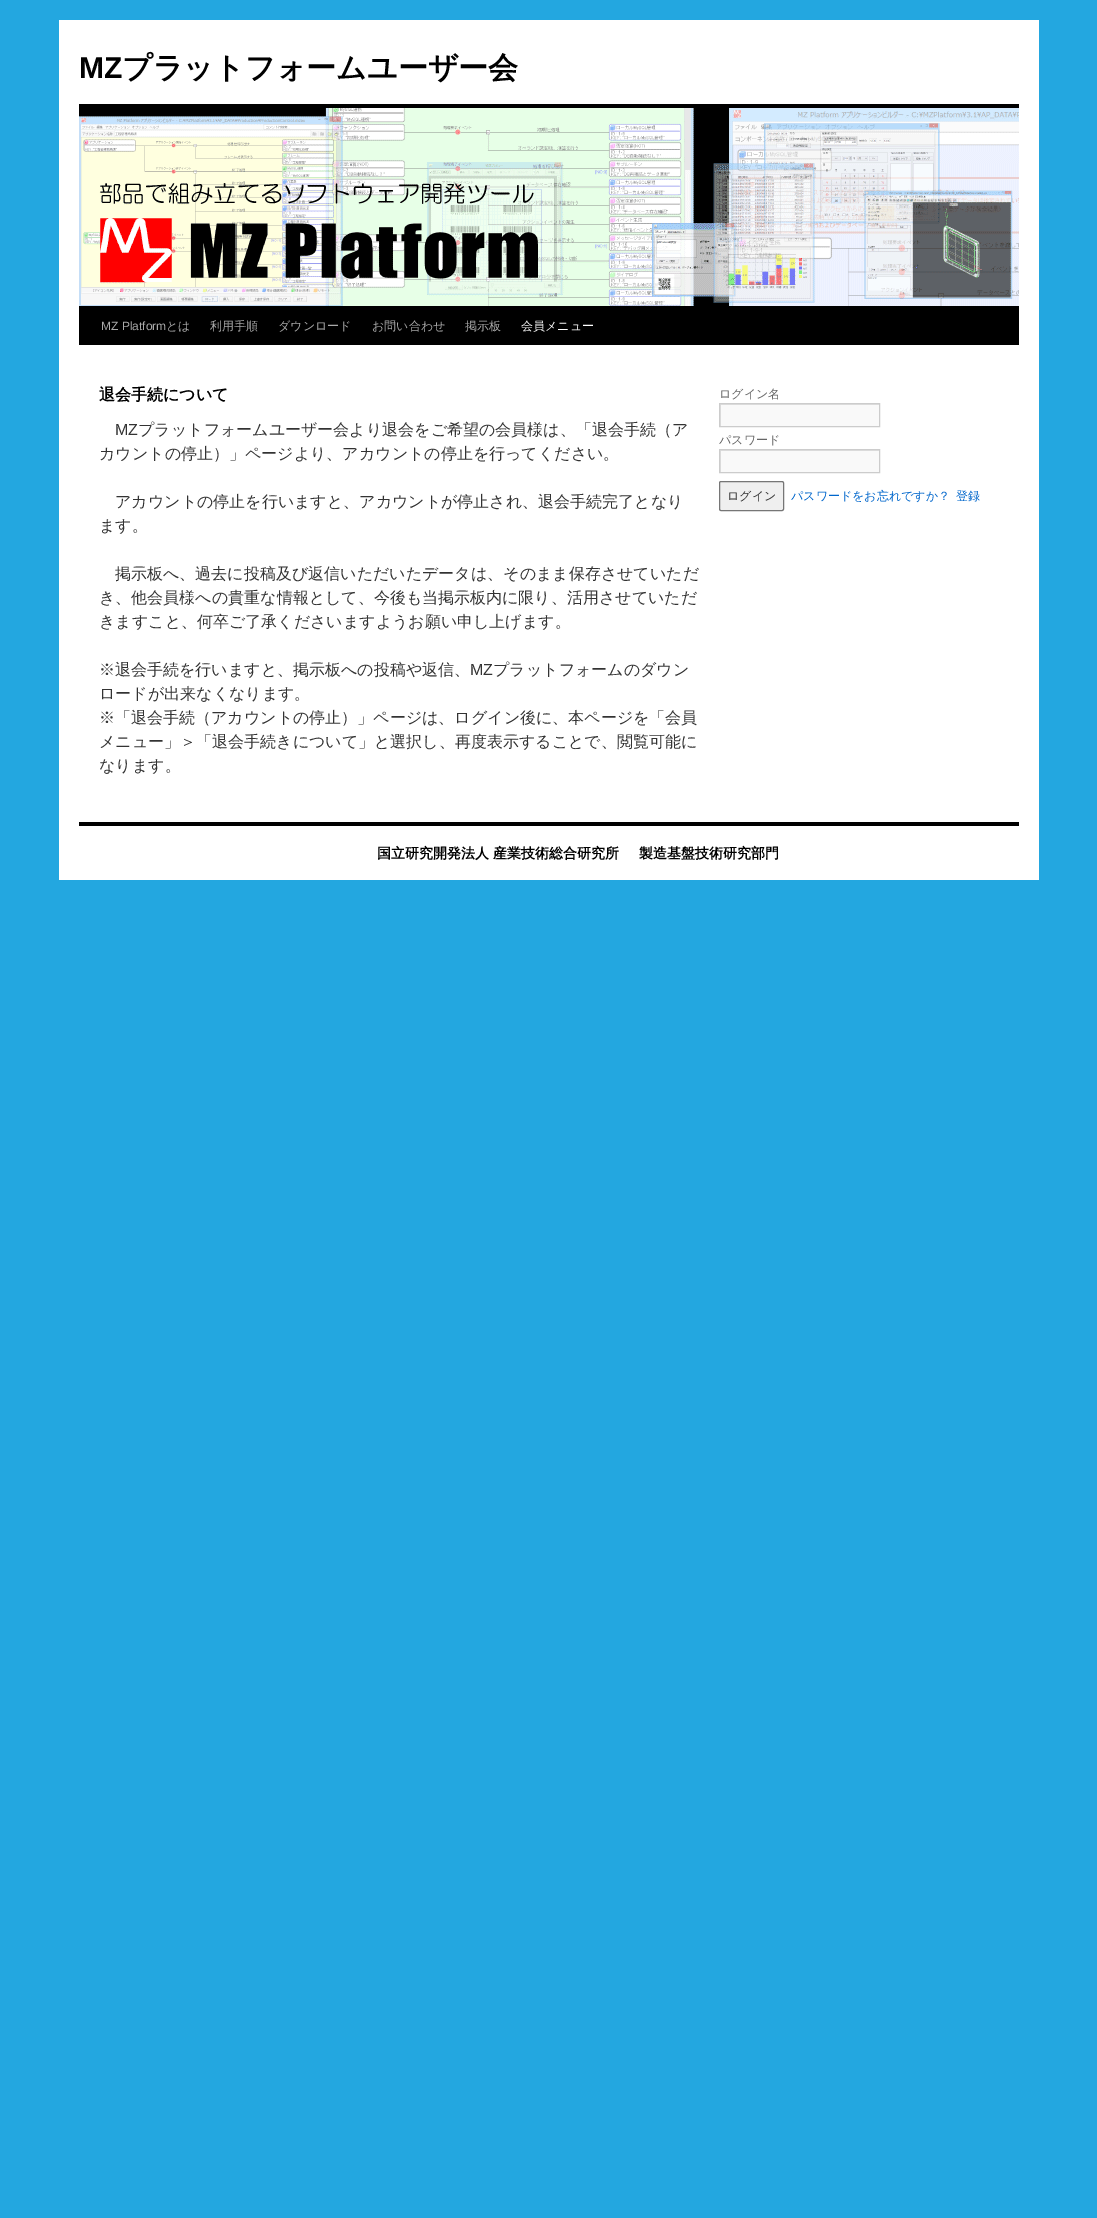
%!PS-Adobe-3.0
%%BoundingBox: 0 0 1097 2218
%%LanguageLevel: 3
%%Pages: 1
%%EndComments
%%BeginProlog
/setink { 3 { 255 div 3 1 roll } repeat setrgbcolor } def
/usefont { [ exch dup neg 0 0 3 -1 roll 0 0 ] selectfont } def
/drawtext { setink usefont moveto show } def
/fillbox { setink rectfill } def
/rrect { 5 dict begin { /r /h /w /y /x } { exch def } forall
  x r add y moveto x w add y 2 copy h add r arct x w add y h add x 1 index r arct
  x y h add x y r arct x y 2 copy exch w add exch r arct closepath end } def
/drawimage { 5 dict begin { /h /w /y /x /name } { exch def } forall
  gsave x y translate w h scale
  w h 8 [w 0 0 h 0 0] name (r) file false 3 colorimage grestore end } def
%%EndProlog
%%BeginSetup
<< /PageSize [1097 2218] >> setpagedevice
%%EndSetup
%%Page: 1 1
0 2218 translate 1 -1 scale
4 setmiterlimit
0 0 1097 2218 35 167 224 fillbox
59 20 980 860 255 255 255 fillbox
(MZ) 79 78 /LiberationSans-Bold 30 0 0 0 drawtext
(プラットフォームユーザー会) 122 78 /WenQuanYiZenHei-Bold 30 0 0 0 drawtext
79 104 940 4 0 0 0 fillbox
79 306 940 39 0 0 0 fillbox
(assets/img1.rgb) 79 108 940 198 drawimage
(MZ Platform) 101 330 /LiberationSans-Regular 12 170 170 170 drawtext
(とは) 166 330 /WenQuanYiZenHei-Medium 12 170 170 170 drawtext
(利用手順) 210 330 /WenQuanYiZenHei-Medium 12 170 170 170 drawtext
(ダウンロード) 278 330 /WenQuanYiZenHei-Medium 12 170 170 170 drawtext
(お問い合わせ) 372 330 /WenQuanYiZenHei-Medium 12 170 170 170 drawtext
(掲示板) 465 330 /WenQuanYiZenHei-Medium 12 170 170 170 drawtext
(会員メニュー) 521 330 /WenQuanYiZenHei-Medium 12 255 255 255 drawtext
(退会手続について) 99 400 /WenQuanYiZenHei-Bold 16 0 0 0 drawtext
(MZ) 115 435 /LiberationSans-Regular 16 51 51 51 drawtext
(プラットフォームユーザー会より退会をご希望の会員様は、「退会手続（ア) 138 435 /WenQuanYiZenHei-Medium 16 51 51 51 drawtext
(カウントの停止）」ページより、アカウントの停止を行ってください。) 99 459 /WenQuanYiZenHei-Medium 16 51 51 51 drawtext
(アカウントの停止を行いますと、アカウントが停止され、退会手続完了となり) 115 507 /WenQuanYiZenHei-Medium 16 51 51 51 drawtext
(ます。) 99 531 /WenQuanYiZenHei-Medium 16 51 51 51 drawtext
(掲示板へ、過去に投稿及び返信いただいたデータは、そのまま保存させていただ) 115 579 /WenQuanYiZenHei-Medium 16 51 51 51 drawtext
(き、他会員様への貴重な情報として、今後も当掲示板内に限り、活用させていただ) 99 603 /WenQuanYiZenHei-Medium 16 51 51 51 drawtext
(きますこと、何卒ご了承くださいますようお願い申し上げます。) 99 627 /WenQuanYiZenHei-Medium 16 51 51 51 drawtext
(※退会手続を行いますと、掲示板への投稿や返信、) 99 675 /WenQuanYiZenHei-Medium 16 51 51 51 drawtext
(MZ) 470 675 /LiberationSans-Regular 16 51 51 51 drawtext
(プラットフォームのダウン) 493 675 /WenQuanYiZenHei-Medium 16 51 51 51 drawtext
(ロードが出来なくなります。) 99 699 /WenQuanYiZenHei-Medium 16 51 51 51 drawtext
(※「退会手続（アカウントの停止）」ページは、ログイン後に、本ページを「会員) 99 723 /WenQuanYiZenHei-Medium 16 51 51 51 drawtext
(メニュー」＞「退会手続きについて」と選択し、再度表示することで、閲覧可能に) 99 747 /WenQuanYiZenHei-Medium 16 51 51 51 drawtext
(なります。) 99 771 /WenQuanYiZenHei-Medium 16 51 51 51 drawtext
(ログイン名) 719 398 /WenQuanYiZenHei-Medium 12 102 102 102 drawtext
721 405 158 21 249 249 249 fillbox
gsave
720 404 159 22 rectclip
224 224 224 setink
621 305 moveto 978 305 lineto 978 525 lineto 621 525 lineto closepath 721 405 moveto 880 405 lineto 880 427 lineto 721 427 lineto closepath eofill
grestore
204 204 204 setink
719.5 403.5 160 23 rectstroke
(パスワード) 719 444 /WenQuanYiZenHei-Medium 12 102 102 102 drawtext
721 451 158 21 249 249 249 fillbox
gsave
720 450 159 22 rectclip
224 224 224 setink
621 351 moveto 978 351 lineto 978 571 lineto 621 571 lineto closepath 721 451 moveto 880 451 lineto 880 473 lineto 721 473 lineto closepath eofill
grestore
204 204 204 setink
719.5 449.5 160 23 rectstroke
239 239 239 setink
719.5 481.5 64 29 1.5 rrect gsave fill grestore
118 118 118 setink
stroke
(ログイン) 727 500 /WenQuanYiZenHei-Medium 12 51 51 51 drawtext
(パスワードをお忘れですか？) 791 500 /WenQuanYiZenHei-Medium 12 0 102 204 drawtext
(登録) 956 500 /WenQuanYiZenHei-Medium 12 0 102 204 drawtext
79 822 940 4 0 0 0 fillbox
(国立研究開発法人 産業技術総合研究所) 377 858 /WenQuanYiZenHei-Bold 14 0 0 0 drawtext
(製造基盤技術研究部門) 639 858 /WenQuanYiZenHei-Bold 14 0 0 0 drawtext
showpage
%%EOF
